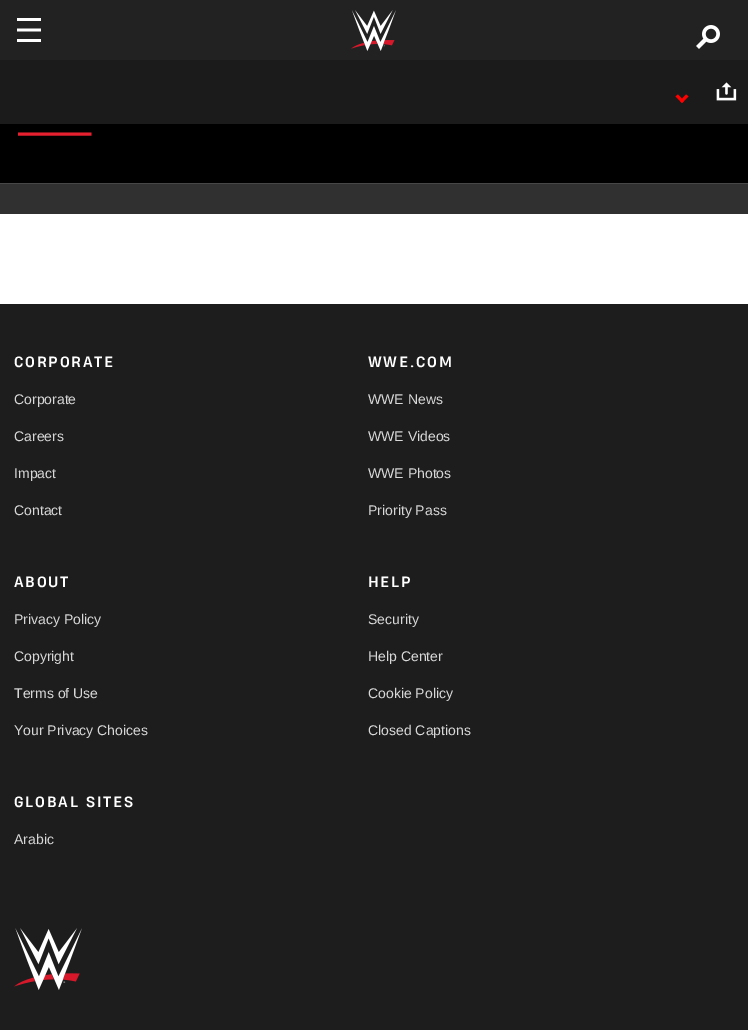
%!PS-Adobe-3.0
%%BoundingBox: 0 0 748 1030
%%LanguageLevel: 3
%%Pages: 1
%%EndComments
%%BeginProlog
/setink { 3 { 255 div 3 1 roll } repeat setrgbcolor } def
/usefont { [ exch dup neg 0 0 3 -1 roll 0 0 ] selectfont } def
/drawtext { setink usefont moveto show } def
/fillbox { setink rectfill } def
/drawimage { 5 dict begin { /h /w /y /x /name } { exch def } forall
  gsave x y translate w h scale
  w h 8 [w 0 0 h 0 0] name (r) file false 3 colorimage grestore end } def
%%EndProlog
%%BeginSetup
<< /PageSize [748 1030] >> setpagedevice
%%EndSetup
%%Page: 1 1
0 1030 translate 1 -1 scale
4 setmiterlimit
0 0 748 1030 255 255 255 fillbox
0 0 748 60 34 34 34 fillbox
(assets/img1.rgb) 17 18 24 24 drawimage
(assets/img2.rgb) 351 10 45 41 drawimage
(assets/img3.rgb) 696 25 24 24 drawimage
0 184 748 30 48 48 48 fillbox
0 60 748 64 27 27 27 fillbox
255 0 0 setink
686 94.5 moveto 688.5 96.5 lineto 682 103 lineto 680 101 lineto closepath fill
678 94.5 moveto 684 101 lineto 682 103 lineto 675.5 96.5 lineto closepath fill
(assets/img4.rgb) 716 82 21 19 drawimage
0 124 748 59 0 0 0 fillbox
0 183 748 1 71 71 71 fillbox
gsave
18 131 90 5 rectclip
231 32 47 setink
3 setlinewidth
1.5 134 moveto 91.5 134 lineto stroke
grestore
0 304 748 726 29 29 29 fillbox
/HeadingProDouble-Bold 14 usefont
255 255 255 setink
14 367 moveto 1.75 0 (CORPORATE) ashow
(Corporate) 14 404 /LiberationSans-Regular 14 216 216 216 drawtext
(Careers) 14 441 /LiberationSans-Regular 14 216 216 216 drawtext
(Impact) 14 478 /LiberationSans-Regular 14 216 216 216 drawtext
(Contact) 14 515 /LiberationSans-Regular 14 216 216 216 drawtext
/HeadingProDouble-Bold 14 usefont
255 255 255 setink
368 367 moveto 1.75 0 (WWE.COM) ashow
(WWE News) 368 404 /LiberationSans-Regular 14 216 216 216 drawtext
(WWE Videos) 368 441 /LiberationSans-Regular 14 216 216 216 drawtext
(WWE Photos) 368 478 /LiberationSans-Regular 14 216 216 216 drawtext
(Priority Pass) 368 515 /LiberationSans-Regular 14 216 216 216 drawtext
/HeadingProDouble-Bold 14 usefont
255 255 255 setink
14 587 moveto 1.75 0 (ABOUT) ashow
(Privacy Policy) 14 624 /LiberationSans-Regular 14 216 216 216 drawtext
(Copyright) 14 661 /LiberationSans-Regular 14 216 216 216 drawtext
(Terms of Use) 14 698 /LiberationSans-Regular 14 216 216 216 drawtext
(Your Privacy Choices) 14 735 /LiberationSans-Regular 14 216 216 216 drawtext
/HeadingProDouble-Bold 14 usefont
255 255 255 setink
368 587 moveto 1.75 0 (HELP) ashow
(Security) 368 624 /LiberationSans-Regular 14 216 216 216 drawtext
(Help Center) 368 661 /LiberationSans-Regular 14 216 216 216 drawtext
(Cookie Policy) 368 698 /LiberationSans-Regular 14 216 216 216 drawtext
(Closed Captions) 368 735 /LiberationSans-Regular 14 216 216 216 drawtext
/HeadingProDouble-Bold 14 usefont
255 255 255 setink
14 807 moveto 1.75 0 (GLOBAL SITES) ashow
(Arabic) 14 844 /LiberationSans-Regular 14 216 216 216 drawtext
(assets/img5.rgb) 14 928 68 62 drawimage
showpage
%%EOF
